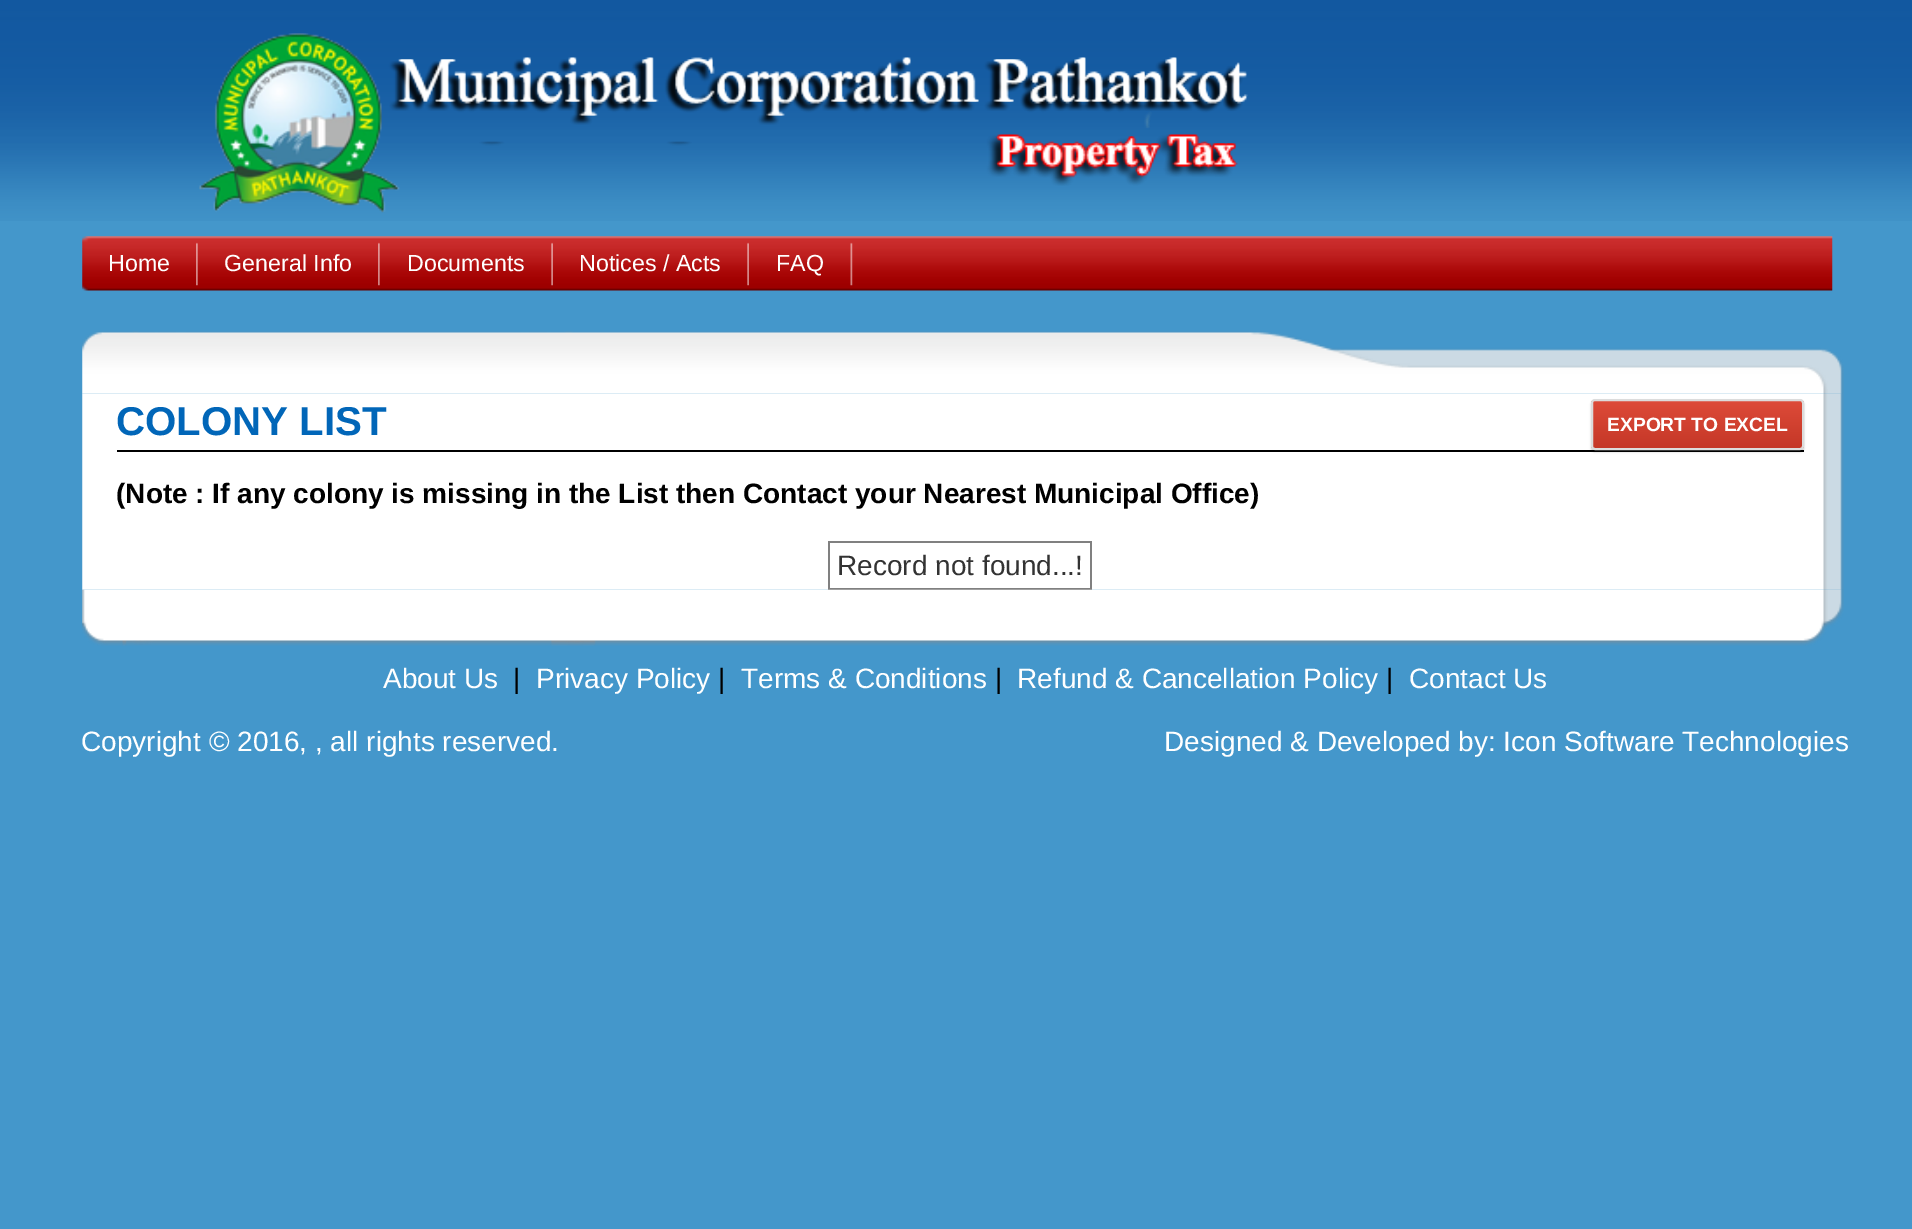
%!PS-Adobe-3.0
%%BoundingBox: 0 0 1912 1229
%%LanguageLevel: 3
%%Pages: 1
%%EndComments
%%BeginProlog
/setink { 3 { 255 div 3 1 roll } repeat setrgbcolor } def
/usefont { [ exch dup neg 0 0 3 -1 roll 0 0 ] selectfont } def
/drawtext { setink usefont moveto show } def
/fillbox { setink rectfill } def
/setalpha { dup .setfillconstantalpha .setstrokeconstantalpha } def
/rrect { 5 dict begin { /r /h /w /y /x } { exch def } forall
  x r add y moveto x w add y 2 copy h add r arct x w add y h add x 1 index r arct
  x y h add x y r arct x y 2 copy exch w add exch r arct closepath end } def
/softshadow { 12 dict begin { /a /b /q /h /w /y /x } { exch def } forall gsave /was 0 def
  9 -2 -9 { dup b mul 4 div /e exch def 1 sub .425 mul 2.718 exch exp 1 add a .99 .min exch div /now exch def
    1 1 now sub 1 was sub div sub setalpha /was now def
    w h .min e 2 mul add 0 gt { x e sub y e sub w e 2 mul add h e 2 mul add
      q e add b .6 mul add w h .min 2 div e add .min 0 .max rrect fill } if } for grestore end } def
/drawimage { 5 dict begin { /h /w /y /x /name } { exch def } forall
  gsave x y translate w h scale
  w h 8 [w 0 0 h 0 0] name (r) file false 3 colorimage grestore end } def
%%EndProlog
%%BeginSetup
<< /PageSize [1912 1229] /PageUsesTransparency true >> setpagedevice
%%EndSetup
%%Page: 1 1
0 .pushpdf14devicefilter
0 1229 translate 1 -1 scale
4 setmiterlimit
0 0 1912 1229 68 151 203 fillbox
(assets/img1.rgb) 0 0 1912 221 drawimage
(assets/img2.rgb) 199 33 1049 180 drawimage
(assets/img3.rgb) 199 33 1049 180 drawimage
(assets/img4.rgb) 82 236 1751 55 drawimage
(assets/img5.rgb) 196 242 2 44 drawimage
(Home) 108 271 /LiberationSans-Regular 23.25 255 255 255 drawtext
(assets/img5.rgb) 378 242 2 44 drawimage
(General Info) 224 271 /LiberationSans-Regular 23.25 255 255 255 drawtext
(assets/img6.rgb) 551 242 2 44 drawimage
(Documents) 407 271 /LiberationSans-Regular 23.25 255 255 255 drawtext
(assets/img6.rgb) 747 242 2 44 drawimage
(Notices / Acts) 579 271 /LiberationSans-Regular 23.25 255 255 255 drawtext
(assets/img7.rgb) 850 242 3 44 drawimage
(FAQ) 776 271 /LiberationSans-Regular 23.25 255 255 255 drawtext
(assets/img8.rgb) 82 331 1762 63 drawimage
(assets/img9.rgb) 82 393 1762 197 drawimage
117 450 1687 2 0 0 0 fillbox
(COLONY LIST) 116 435 /LiberationSans-Bold 40.25 1 102 184 drawtext
0 0 0 setink
1591 401 213 51 4 1 0.2 softshadow
gsave
1591 399 213 51 4 rrect clip newpath
gsave 1591 401 moveto 1804 401 lineto 1804 448 lineto 1591 448 lineto closepath clip newpath
<< /ShadingType 2 /ColorSpace /DeviceRGB /Coords [1698 401 1698 448] /Extend [true true] /Function << /FunctionType 2 /Domain [0 1] /C0 [0.867 0.294 0.224] /C1 [0.773 0.216 0.153] /N 1 >> >> shfill grestore
grestore
220 220 220 setink
2 setlinewidth
1592 400 211 49 3 rrect stroke
(EXPORT TO EXCEL) 1607 431 /LiberationSans-Bold 19.25 255 255 255 drawtext
(\(Note : If any colony is missing in the List then Contact your Nearest Municipal Office\)) 116 503 /LiberationSans-Bold 28 0 0 0 drawtext
828 541 264 2 128 128 128 fillbox
1090 541 2 49 128 128 128 fillbox
828 588 264 2 128 128 128 fillbox
828 541 2 49 128 128 128 fillbox
(Record not found...!) 837 575 /LiberationSans-Regular 28 51 51 51 drawtext
(assets/img10.rgb) 82 589 1762 57 drawimage
(About Us) 383 688 /LiberationSans-Regular 28 255 255 255 drawtext
(|) 513 688 /LiberationSans-Regular 28 0 0 0 drawtext
(Privacy Policy) 536 688 /LiberationSans-Regular 28 255 255 255 drawtext
(|) 718 688 /LiberationSans-Regular 28 0 0 0 drawtext
(Terms & Conditions) 741 688 /LiberationSans-Regular 28 255 255 255 drawtext
(|) 995 688 /LiberationSans-Regular 28 0 0 0 drawtext
(Refund & Cancellation Policy) 1017 688 /LiberationSans-Regular 28 255 255 255 drawtext
(|) 1386 688 /LiberationSans-Regular 28 0 0 0 drawtext
(Contact Us) 1409 688 /LiberationSans-Regular 28 255 255 255 drawtext
(Copyright © 2016, , all rights reserved.) 81 751 /LiberationSans-Regular 28 255 255 255 drawtext
(Designed & Developed by: Icon Software Technologies) 1164 751 /LiberationSans-Regular 28 255 255 255 drawtext
.poppdf14devicefilter showpage
%%EOF
